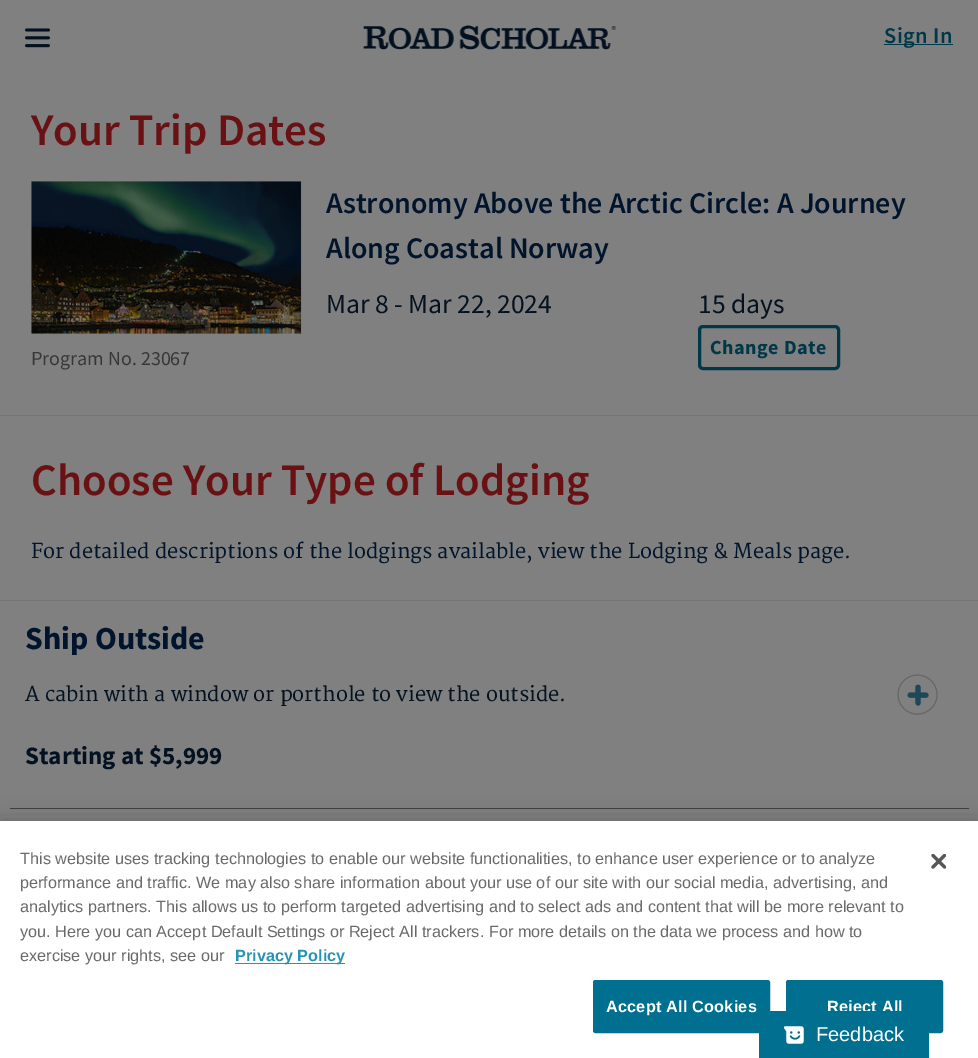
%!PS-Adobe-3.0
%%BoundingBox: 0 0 978 1058
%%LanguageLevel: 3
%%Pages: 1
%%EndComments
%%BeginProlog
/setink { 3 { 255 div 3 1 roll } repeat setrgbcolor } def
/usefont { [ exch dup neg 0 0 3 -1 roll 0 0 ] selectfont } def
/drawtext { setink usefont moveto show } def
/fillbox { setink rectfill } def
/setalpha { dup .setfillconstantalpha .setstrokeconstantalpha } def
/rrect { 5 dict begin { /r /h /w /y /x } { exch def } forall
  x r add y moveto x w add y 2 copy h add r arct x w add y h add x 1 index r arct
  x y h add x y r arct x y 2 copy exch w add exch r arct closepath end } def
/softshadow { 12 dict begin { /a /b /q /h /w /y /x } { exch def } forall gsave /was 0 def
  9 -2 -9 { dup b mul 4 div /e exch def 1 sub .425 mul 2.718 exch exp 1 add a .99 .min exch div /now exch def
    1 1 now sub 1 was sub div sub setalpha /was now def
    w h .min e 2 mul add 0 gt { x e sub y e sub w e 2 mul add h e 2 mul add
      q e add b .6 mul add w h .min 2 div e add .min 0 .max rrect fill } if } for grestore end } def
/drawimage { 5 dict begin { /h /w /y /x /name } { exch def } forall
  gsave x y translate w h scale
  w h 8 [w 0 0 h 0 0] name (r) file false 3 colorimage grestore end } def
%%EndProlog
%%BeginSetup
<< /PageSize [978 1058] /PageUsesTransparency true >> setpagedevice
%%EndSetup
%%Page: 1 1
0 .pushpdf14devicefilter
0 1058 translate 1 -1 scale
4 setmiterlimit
0 0 978 1058 128 128 128 fillbox
(assets/img1.rgb) 25 28 25 20 drawimage
(assets/img2.rgb) 363 25 253 25 drawimage
884 44 69 1 0 56 72 fillbox
/SourceSansPro-SemiBold 22.5 usefont
884 43 moveto 0.5 0 (Sign In) ashow
0 415 978 1 116 116 116 fillbox
(Your Trip Dates) 31 145 /SourceSansPro-SemiBold 45 106 17 19 drawtext
31 181 270 153 124 126 126 fillbox
(assets/img3.rgb) 31 181 271 153 drawimage
(Program No. 23067) 31 365 /SourceSansPro-Regular 20 55 55 56 drawtext
(Astronomy Above the Arctic Circle: A Journey) 326 213 /SourceSansPro-SemiBold 30 0 21 44 drawtext
(Along Coastal Norway) 326 258 /SourceSansPro-SemiBold 30 0 21 44 drawtext
(Mar 8 - Mar 22, 2024) 326 313 /SourceSansPro-Regular 27.5 3 17 32 drawtext
(15 days) 698 313 /SourceSansPro-Regular 27.5 3 17 32 drawtext
0 56 72 setink
3 setlinewidth
699.5 326.5 139 42 3.5 rrect stroke
/SourceSansPro-Bold 20 usefont
710 354 moveto 0.5 0 (Change Date) ashow
0 600 978 1 116 116 116 fillbox
(Choose Your Type of Lodging) 31 495 /SourceSansPro-SemiBold 45 106 17 19 drawtext
(For detailed descriptions of the lodgings available, view the Lodging & Meals page.) 31 558 /Merriweather-Regular 20 0 21 44 drawtext
10 808 959 1 64 64 64 fillbox
(Ship Outside) 25 649 /SourceSansPro-Bold 32 0 21 44 drawtext
(A cabin with a window or porthole to view the outside.) 25 701 /Merriweather-Regular 20 3 17 32 drawtext
(Starting at $5,999) 25 764 /SourceSansPro-Bold 25 3 17 32 drawtext
(assets/img4.rgb) 897 674 41 41 drawimage
(assets/img5.rgb) 907 684 22 22 drawimage
0 0 0 setink
0 821 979 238 0 11 0.2 softshadow
0 821 978 237 255 255 255 fillbox
(This website uses tracking technologies to enable our website functionalities, to enhance user experience or to analyze) 20 864 /LiberationSans-Regular 16.25 105 105 105 drawtext
(performance and traffic. We may also share information about your use of our site with our social media, advertising, and) 20 888 /LiberationSans-Regular 16.25 105 105 105 drawtext
(analytics partners. This allows us to perform targeted advertising and to select ads and content that will be more relevant to) 20 912 /LiberationSans-Regular 16.25 105 105 105 drawtext
(you. Here you can Accept Default Settings or Reject All trackers. For more details on the data we process and how to) 20 937 /LiberationSans-Regular 16.25 105 105 105 drawtext
(exercise your rights, see our) 20 961 /LiberationSans-Regular 16.25 105 105 105 drawtext
235 963 110 1 39 148 182 fillbox
(Privacy Policy) 235 961 /LiberationSans-Bold 16.25 39 148 182 drawtext
0 111 144 setink
593.5 980.5 176 52 2 rrect gsave fill grestore
1 setlinewidth
stroke
255 255 255 setink
606 1012 moveto 0.2 0 (Accept All Cookies) ashow
0 111 144 setink
786.5 980.5 156 52 2 rrect gsave fill grestore
stroke
255 255 255 setink
827 1012 moveto 0.2 0 (Reject All) ashow
(assets/img6.rgb) 931 854 15 15 drawimage
0 111 144 setink
767 1011 moveto 921 1011 lineto 925.5 1011 929 1014.5 929 1019 curveto 929 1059 lineto 759 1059 lineto 759 1019 lineto 759 1014.5 762.5 1011 767 1011 curveto closepath fill
(assets/img7.rgb) 784 1026 20 18 drawimage
(Feedback) 816 1041 /LiberationSans-Regular 20 255 255 255 drawtext
.poppdf14devicefilter showpage
%%EOF
